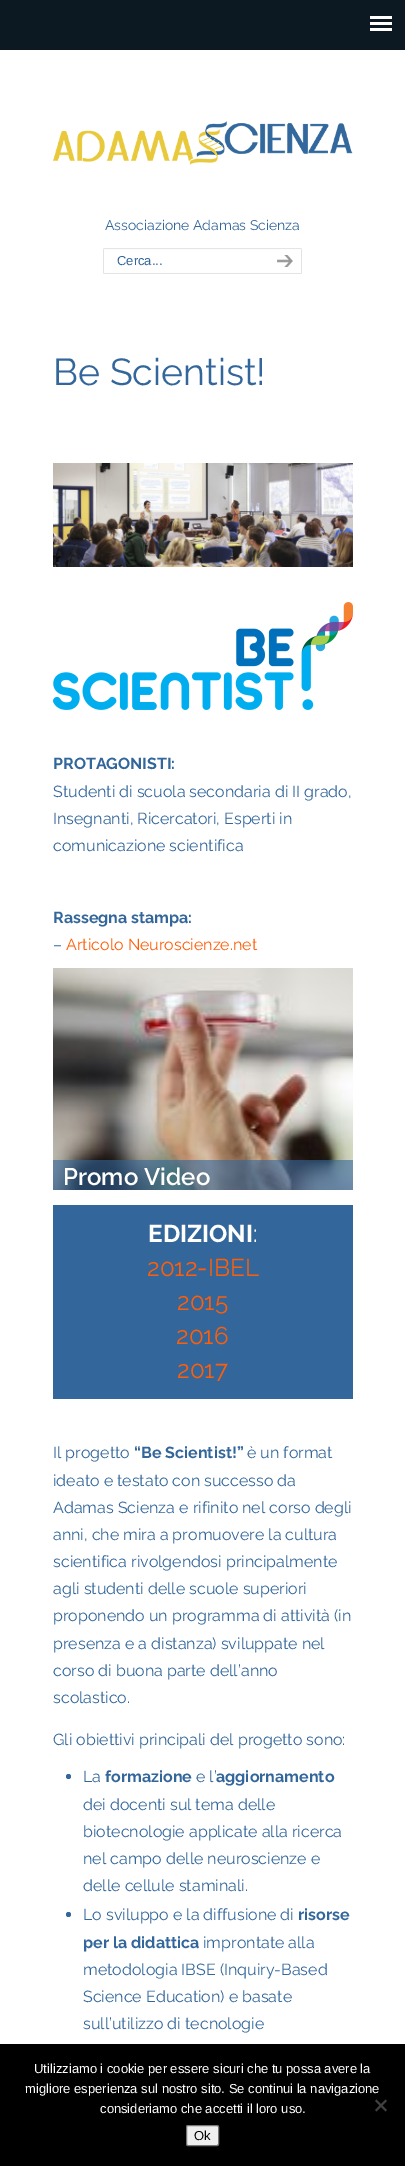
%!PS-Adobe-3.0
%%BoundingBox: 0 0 405 2166
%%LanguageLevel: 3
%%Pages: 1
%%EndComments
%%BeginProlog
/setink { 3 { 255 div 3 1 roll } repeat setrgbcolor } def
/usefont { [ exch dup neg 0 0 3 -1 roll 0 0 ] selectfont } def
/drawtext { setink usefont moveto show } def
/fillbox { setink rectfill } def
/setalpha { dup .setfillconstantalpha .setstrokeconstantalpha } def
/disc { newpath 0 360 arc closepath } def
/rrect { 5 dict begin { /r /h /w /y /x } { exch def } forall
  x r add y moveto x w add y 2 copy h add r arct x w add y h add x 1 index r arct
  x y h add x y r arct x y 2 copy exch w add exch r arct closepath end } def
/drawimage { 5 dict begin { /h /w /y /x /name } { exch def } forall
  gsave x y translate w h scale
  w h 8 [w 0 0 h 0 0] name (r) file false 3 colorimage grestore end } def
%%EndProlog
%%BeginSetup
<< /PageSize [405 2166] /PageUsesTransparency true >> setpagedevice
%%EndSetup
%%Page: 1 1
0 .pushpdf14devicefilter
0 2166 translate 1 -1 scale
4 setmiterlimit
0 0 405 2166 255 255 255 fillbox
0 0 405 50 12 25 35 fillbox
370 16 22 3 255 255 255 fillbox
370 22 22 3 255 255 255 fillbox
370 28 22 3 255 255 255 fillbox
(assets/img1.rgb) 53 121 300 44 drawimage
(Associazione Adamas Scienza) 105 230 /Raleway-Regular 14 51 102 154 drawtext
(assets/img2.rgb) 103 248 159 26 drawimage
(Cerca...) 117 265 /LiberationSans-Regular 13 51 102 154 drawtext
(assets/img3.rgb) 262 248 40 26 drawimage
(Be Scientist!) 53 385 /Raleway-Regular 37.5 51 102 154 drawtext
(assets/img4.rgb) 53 463 300 104 drawimage
(assets/img5.rgb) 53 602 300 108 drawimage
(PROTAGONISTI:) 53 769 /Raleway-Bold 16 51 102 154 drawtext
(Studenti di scuola secondaria di II grado,) 53 797 /Raleway-Regular 16 51 102 154 drawtext
(Insegnanti, Ricercatori, Esperti in) 53 824 /Raleway-Regular 16 51 102 154 drawtext
(comunicazione scientifica) 53 851 /Raleway-Regular 16 51 102 154 drawtext
(Rassegna stampa:) 53 923 /Raleway-Bold 16 51 102 154 drawtext
(–) 53 950 /Raleway-Regular 16 51 102 154 drawtext
(Articolo Neuroscienze.net) 66 950 /Raleway-Regular 16 254 94 8 drawtext
(assets/img6.rgb) 53 968 300 222 drawimage
0.61 setalpha
53 1160 300 30 51 102 154 fillbox
1 setalpha
(Promo Video) 63 1185 /Raleway-SemiBold 24 255 255 255 drawtext
53 1205 300 194 51 102 154 fillbox
(EDIZIONI) 148 1242 /Raleway-Bold 24.25 255 255 255 drawtext
(:) 253 1242 /Raleway-Regular 24.25 255 255 255 drawtext
(2012-IBEL) 147 1276 /Raleway-Regular 24.25 254 94 8 drawtext
(2015) 177 1310 /Raleway-Regular 24.25 254 94 8 drawtext
(2016) 176 1344 /Raleway-Regular 24.25 254 94 8 drawtext
(2017) 177 1378 /Raleway-Regular 24.25 254 94 8 drawtext
(Il progetto) 53 1458 /Raleway-Regular 16 51 102 154 drawtext
(“Be Scientist!”) 134 1458 /Raleway-Bold 16 51 102 154 drawtext
(è un format) 247 1458 /Raleway-Regular 16 51 102 154 drawtext
(ideato e testato con successo da) 53 1486 /Raleway-Regular 16 51 102 154 drawtext
(Adamas Scienza e rifinito nel corso degli) 53 1513 /Raleway-Regular 16 51 102 154 drawtext
(anni, che mira a promuovere la cultura) 53 1540 /Raleway-Regular 16 51 102 154 drawtext
(scientifica rivolgendosi principalmente) 53 1567 /Raleway-Regular 16 51 102 154 drawtext
(agli studenti delle scuole superiori) 53 1594 /Raleway-Regular 16 51 102 154 drawtext
(proponendo un programma di attività \(in) 53 1621 /Raleway-Regular 16 51 102 154 drawtext
(presenza e a distanza\) sviluppate nel) 53 1649 /Raleway-Regular 16 51 102 154 drawtext
(corso di buona parte dell’anno) 53 1676 /Raleway-Regular 16 51 102 154 drawtext
(scolastico.) 53 1703 /Raleway-Regular 16 51 102 154 drawtext
(Gli obiettivi principali del progetto sono:) 53 1745 /Raleway-Regular 16 51 102 154 drawtext
68.5 1776.5 2.5 disc fill
(La) 83 1782 /Raleway-Regular 16 51 102 154 drawtext
(formazione) 105 1782 /Raleway-Bold 16 51 102 154 drawtext
(e l’) 196 1782 /Raleway-Regular 16 51 102 154 drawtext
(aggiornamento) 216 1782 /Raleway-Bold 16 51 102 154 drawtext
(dei docenti sul tema delle) 83 1810 /Raleway-Regular 16 51 102 154 drawtext
(biotecnologie applicate alla ricerca) 83 1837 /Raleway-Regular 16 51 102 154 drawtext
(nel campo delle neuroscienze e) 83 1864 /Raleway-Regular 16 51 102 154 drawtext
(delle cellule staminali.) 83 1891 /Raleway-Regular 16 51 102 154 drawtext
68.5 1914.5 2.5 disc fill
(Lo sviluppo e la diffusione di) 83 1920 /Raleway-Regular 16 51 102 154 drawtext
(risorse) 298 1920 /Raleway-Bold 16 51 102 154 drawtext
(per la didattica) 83 1948 /Raleway-Bold 16 51 102 154 drawtext
(improntate alla) 203 1948 /Raleway-Regular 16 51 102 154 drawtext
(metodologia IBSE \(Inquiry-Based) 83 1975 /Raleway-Regular 16 51 102 154 drawtext
(Science Education\) e basate) 83 2002 /Raleway-Regular 16 51 102 154 drawtext
(sull’utilizzo di tecnologie) 83 2029 /Raleway-Regular 16 51 102 154 drawtext
0 2044 405 122 0 0 0 fillbox
(Utilizziamo i cookie per essere sicuri che tu possa avere la) 34 2073 /LiberationSans-Regular 13 255 255 255 drawtext
(migliore esperienza sul nostro sito. Se continui la navigazione) 25 2093 /LiberationSans-Regular 13 255 255 255 drawtext
(consideriamo che accetti il loro uso.) 100 2113 /LiberationSans-Regular 13 255 255 255 drawtext
64 64 64 setink
385.5 2099.5 moveto 387 2101 lineto 376.5 2111.5 lineto 375 2110 lineto closepath fill
375 2101 moveto 376.5 2099.5 lineto 387 2110 lineto 385.5 2111.5 lineto closepath fill
239 239 239 setink
186.5 2125.5 32 20 1.5 rrect gsave fill grestore
118 118 118 setink
stroke
(Ok) 194 2140 /LiberationSans-Regular 13 0 0 0 drawtext
.poppdf14devicefilter showpage
%%EOF
